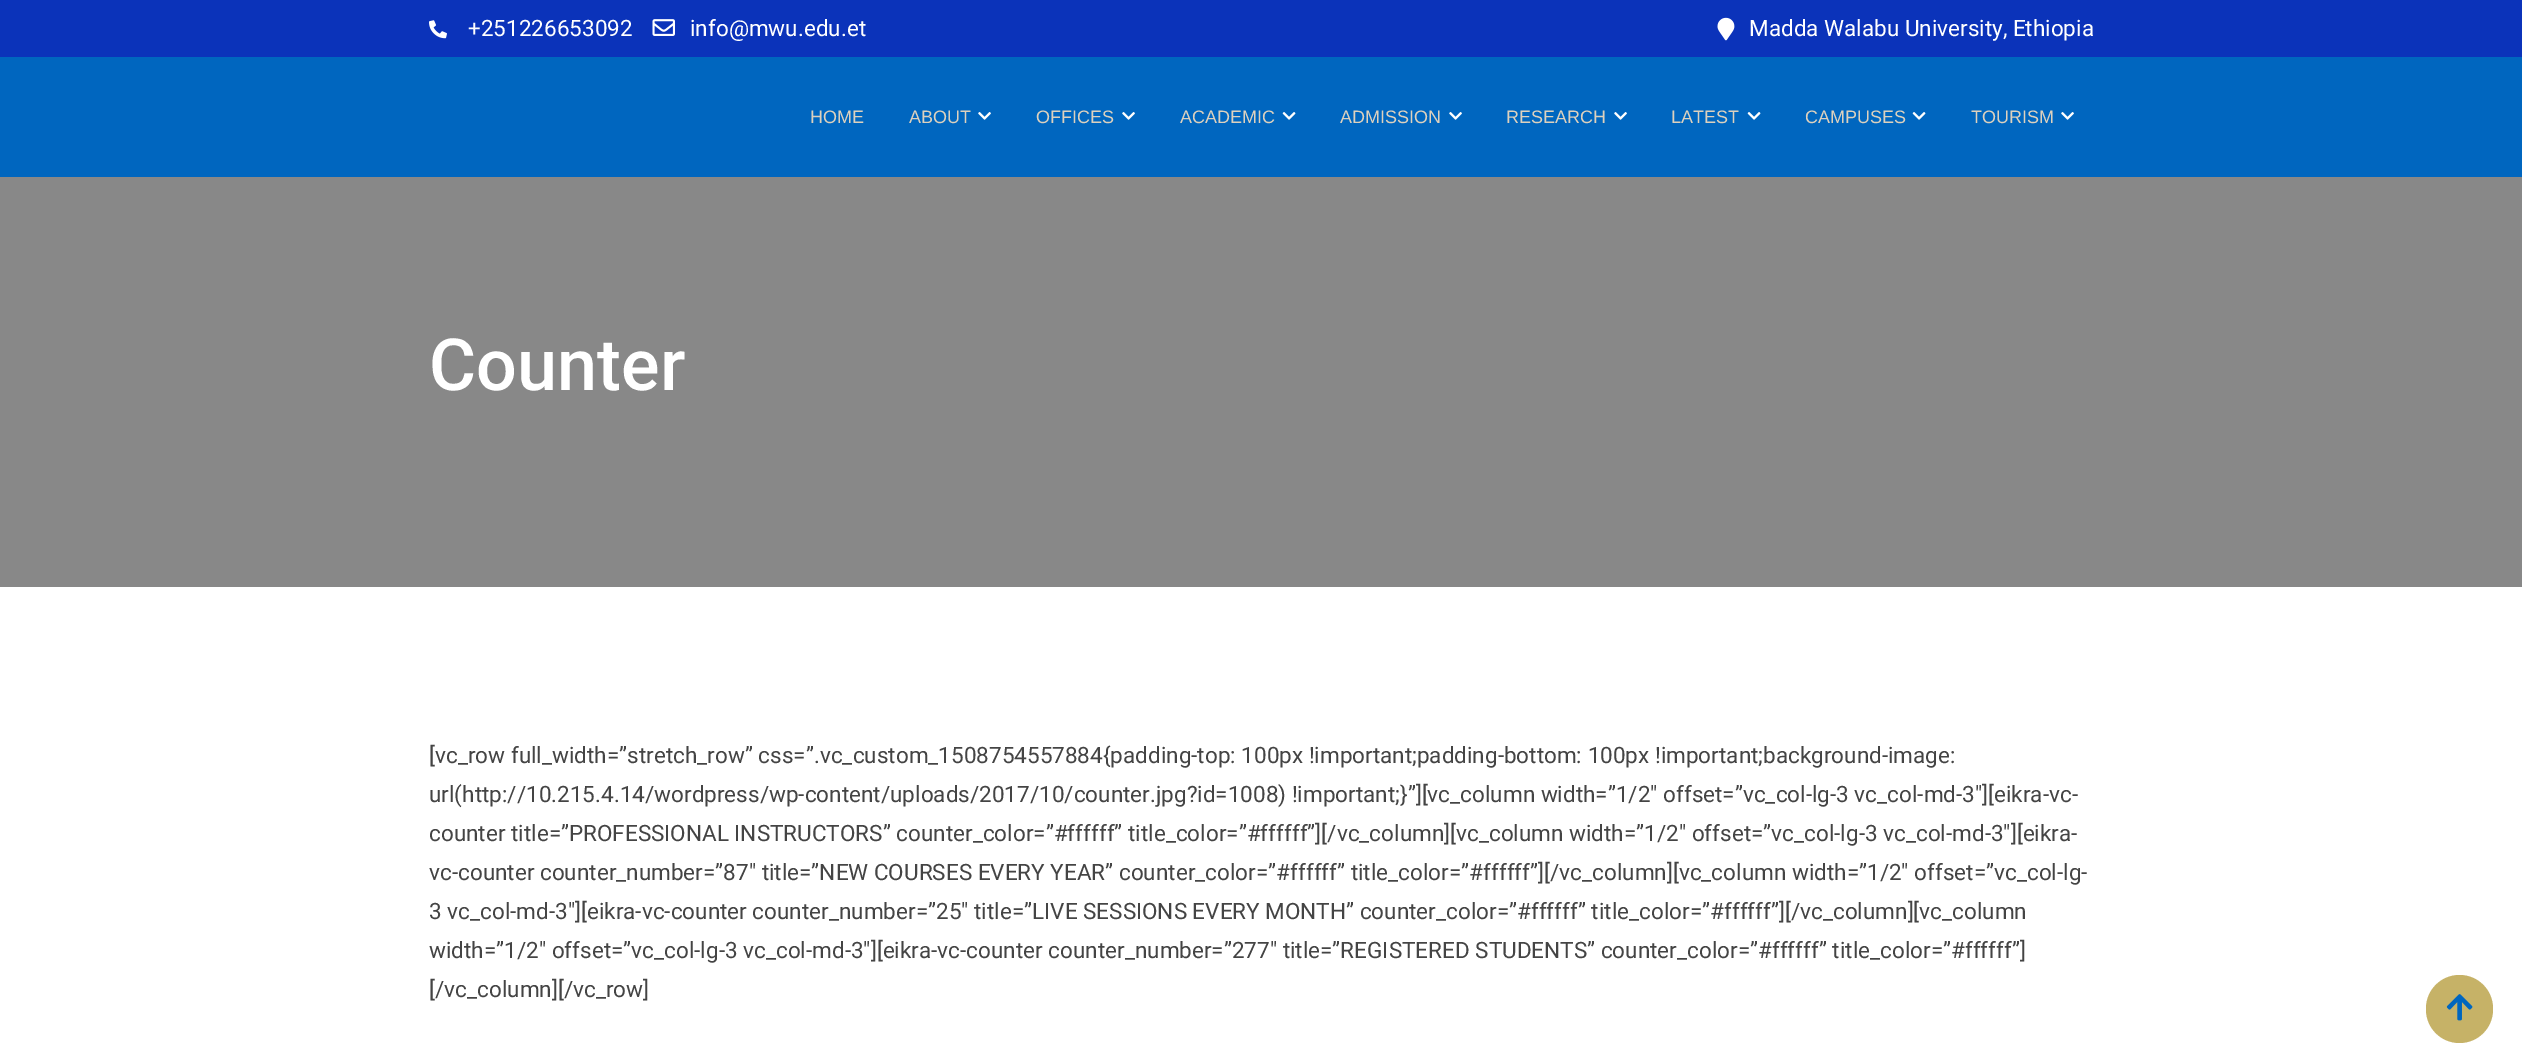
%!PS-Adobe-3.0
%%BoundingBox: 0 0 2522 1049
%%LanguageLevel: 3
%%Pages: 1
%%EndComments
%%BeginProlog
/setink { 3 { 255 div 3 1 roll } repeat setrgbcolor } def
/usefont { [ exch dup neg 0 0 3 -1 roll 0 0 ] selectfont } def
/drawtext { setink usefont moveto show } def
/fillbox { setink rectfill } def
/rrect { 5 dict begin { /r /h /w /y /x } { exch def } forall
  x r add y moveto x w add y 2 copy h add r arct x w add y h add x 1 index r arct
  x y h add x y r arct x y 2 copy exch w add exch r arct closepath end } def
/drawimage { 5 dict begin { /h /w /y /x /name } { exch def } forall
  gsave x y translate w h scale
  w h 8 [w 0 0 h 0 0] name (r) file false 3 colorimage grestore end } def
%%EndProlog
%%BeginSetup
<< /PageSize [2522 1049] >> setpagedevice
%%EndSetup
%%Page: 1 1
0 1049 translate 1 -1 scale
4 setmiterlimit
0 0 2522 1049 255 255 255 fillbox
0 57 2522 120 0 102 191 fillbox
0 0 2522 57 11 51 186 fillbox
(assets/img1.rgb) 429 20 18 19 drawimage
(+251226653092) 468 36 /Roboto-Regular 22.5 255 255 255 drawtext
(assets/img2.rgb) 652 19 23 17 drawimage
(info@mwu.edu.et) 690 36 /Roboto-Regular 22.5 255 255 255 drawtext
(assets/img3.rgb) 1717 17 18 24 drawimage
(Madda Walabu University, Ethiopia) 1749 36 /Roboto-Regular 22.5 255 255 255 drawtext
(HOME) 810 123 /LiberationSans-Regular 18 221 209 190 drawtext
(ABOUT) 909 123 /LiberationSans-Regular 18 221 209 190 drawtext
(assets/img4.rgb) 978 112 13 8 drawimage
(OFFICES) 1036 123 /LiberationSans-Regular 18 221 209 190 drawtext
(assets/img4.rgb) 1122 112 13 8 drawimage
(ACADEMIC) 1180 123 /LiberationSans-Regular 18 221 209 190 drawtext
(assets/img5.rgb) 1282 112 14 8 drawimage
(ADMISSION) 1340 123 /LiberationSans-Regular 18 221 209 190 drawtext
(assets/img4.rgb) 1449 112 13 8 drawimage
(RESEARCH) 1506 123 /LiberationSans-Regular 18 221 209 190 drawtext
(assets/img4.rgb) 1614 112 13 8 drawimage
(LATEST) 1671 123 /LiberationSans-Regular 18 221 209 190 drawtext
(assets/img5.rgb) 1747 112 14 8 drawimage
(CAMPUSES) 1805 123 /LiberationSans-Regular 18 221 209 190 drawtext
(assets/img5.rgb) 1912 112 14 8 drawimage
(TOURISM) 1971 123 /LiberationSans-Regular 18 221 209 190 drawtext
(assets/img4.rgb) 2061 112 13 8 drawimage
0 177 2522 410 136 136 136 fillbox
(Counter) 429 390 /Roboto-Medium 72 255 255 255 drawtext
([vc_row full_width=”stretch_row” css=”.vc_custom_1508754557884{padding-top: 100px !important;padding-bottom: 100px !important;background-image:) 429 763 /Roboto-Regular 22.5 68 68 68 drawtext
(url\(http://10.215.4.14/wordpress/wp-content/uploads/2017/10/counter.jpg?id=1008\) !important;}”][vc_column width=”1/2″ offset=”vc_col-lg-3 vc_col-md-3″][eikra-vc-) 429 802 /Roboto-Regular 22.5 68 68 68 drawtext
(counter title=”PROFESSIONAL INSTRUCTORS” counter_color=”#ffffff” title_color=”#ffffff”][/vc_column][vc_column width=”1/2″ offset=”vc_col-lg-3 vc_col-md-3″][eikra-) 429 841 /Roboto-Regular 22.5 68 68 68 drawtext
(vc-counter counter_number=”87″ title=”NEW COURSES EVERY YEAR” counter_color=”#ffffff” title_color=”#ffffff”][/vc_column][vc_column width=”1/2″ offset=”vc_col-lg-) 429 880 /Roboto-Regular 22.5 68 68 68 drawtext
(3 vc_col-md-3″][eikra-vc-counter counter_number=”25″ title=”LIVE SESSIONS EVERY MONTH” counter_color=”#ffffff” title_color=”#ffffff”][/vc_column][vc_column) 429 919 /Roboto-Regular 22.5 68 68 68 drawtext
(width=”1/2″ offset=”vc_col-lg-3 vc_col-md-3″][eikra-vc-counter counter_number=”277″ title=”REGISTERED STUDENTS” counter_color=”#ffffff” title_color=”#ffffff”]) 429 958 /Roboto-Regular 22.5 68 68 68 drawtext
([/vc_column][/vc_row]) 429 997 /Roboto-Regular 22.5 68 68 68 drawtext
198 178 103 setink
2426 975 67 68 33.5 rrect fill
(assets/img6.rgb) 2446 994 27 27 drawimage
showpage
%%EOF
